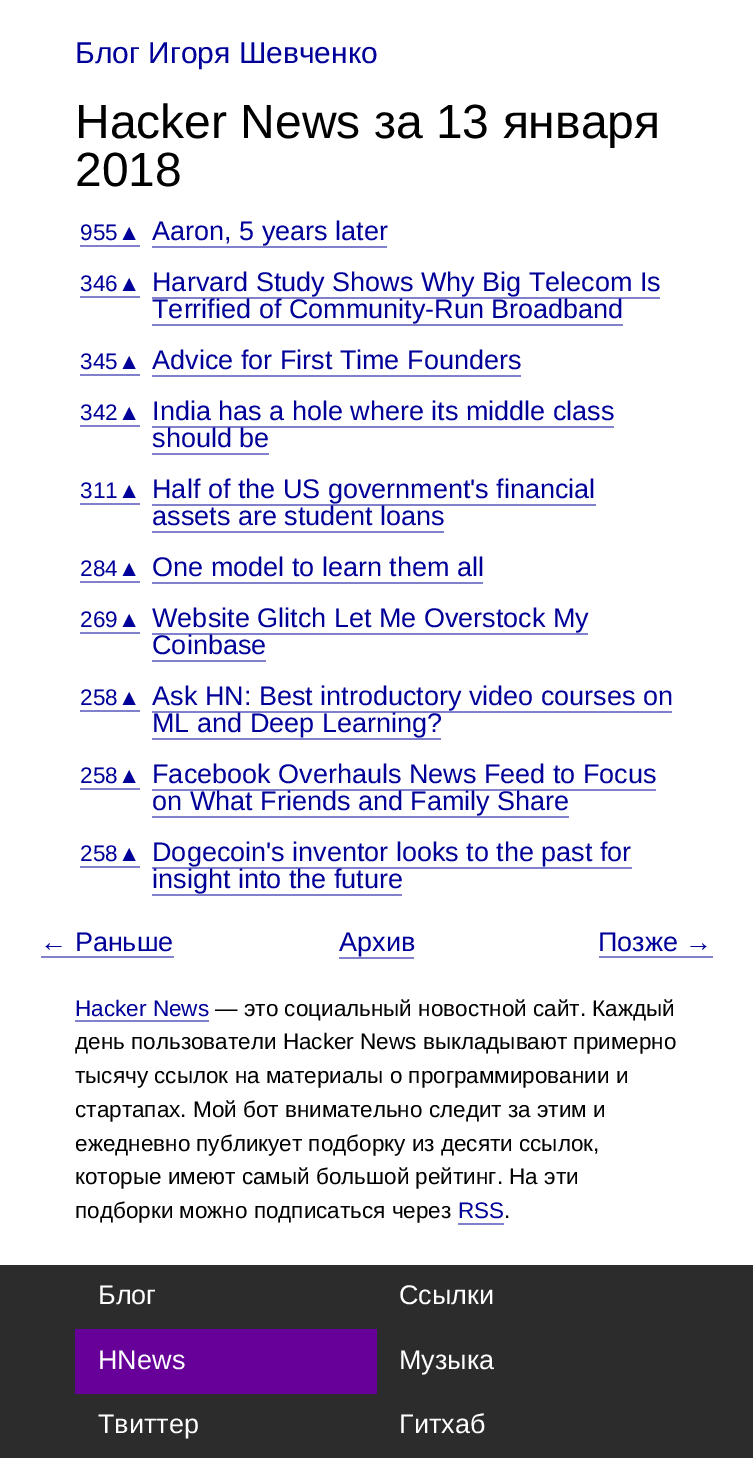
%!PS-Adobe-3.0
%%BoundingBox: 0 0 753 1469
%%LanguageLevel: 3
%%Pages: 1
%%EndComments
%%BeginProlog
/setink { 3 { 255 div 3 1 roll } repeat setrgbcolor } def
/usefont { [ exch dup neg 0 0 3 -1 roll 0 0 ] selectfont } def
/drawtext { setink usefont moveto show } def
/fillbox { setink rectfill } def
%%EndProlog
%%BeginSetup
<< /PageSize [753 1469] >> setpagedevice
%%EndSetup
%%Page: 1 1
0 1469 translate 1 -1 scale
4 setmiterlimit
0 0 753 1469 255 255 255 fillbox
(Блог Игоря Шевченко) 75 63 /LiberationSans-Regular 30 0 0 153 drawtext
(Hacker News за 13 января) 75 138 /LiberationSans-Regular 48 0 0 0 drawtext
(2018) 75 186 /LiberationSans-Regular 48 0 0 0 drawtext
(955▲) 80 240 /LiberationSans-Regular 22.5 0 0 153 drawtext
80 245 60 2 128 128 204 fillbox
(Aaron, 5 years later) 152 240 /LiberationSans-Regular 27 0 0 153 drawtext
152 246 235 2 128 128 204 fillbox
(346▲) 80 291 /LiberationSans-Regular 22.5 0 0 153 drawtext
80 296 60 2 128 128 204 fillbox
(Harvard Study Shows Why Big Telecom Is) 152 291 /LiberationSans-Regular 27 0 0 153 drawtext
152 297 508 2 128 128 204 fillbox
(Terrified of Community-Run Broadband) 152 318 /LiberationSans-Regular 27 0 0 153 drawtext
152 324 471 2 128 128 204 fillbox
(345▲) 80 369 /LiberationSans-Regular 22.5 0 0 153 drawtext
80 374 60 2 128 128 204 fillbox
(Advice for First Time Founders) 152 369 /LiberationSans-Regular 27 0 0 153 drawtext
152 375 369 2 128 128 204 fillbox
(342▲) 80 420 /LiberationSans-Regular 22.5 0 0 153 drawtext
80 425 60 2 128 128 204 fillbox
(India has a hole where its middle class) 152 420 /LiberationSans-Regular 27 0 0 153 drawtext
152 426 462 2 128 128 204 fillbox
(should be) 152 447 /LiberationSans-Regular 27 0 0 153 drawtext
152 453 117 2 128 128 204 fillbox
(311▲) 80 498 /LiberationSans-Regular 22.5 0 0 153 drawtext
80 503 60 2 128 128 204 fillbox
(Half of the US government's financial) 152 498 /LiberationSans-Regular 27 0 0 153 drawtext
152 504 444 2 128 128 204 fillbox
(assets are student loans) 152 525 /LiberationSans-Regular 27 0 0 153 drawtext
152 531 292 2 128 128 204 fillbox
(284▲) 80 576 /LiberationSans-Regular 22.5 0 0 153 drawtext
80 581 60 2 128 128 204 fillbox
(One model to learn them all) 152 576 /LiberationSans-Regular 27 0 0 153 drawtext
152 582 331 2 128 128 204 fillbox
(269▲) 80 627 /LiberationSans-Regular 22.5 0 0 153 drawtext
80 632 60 2 128 128 204 fillbox
(Website Glitch Let Me Overstock My) 152 627 /LiberationSans-Regular 27 0 0 153 drawtext
152 633 436 2 128 128 204 fillbox
(Coinbase) 152 654 /LiberationSans-Regular 27 0 0 153 drawtext
152 660 114 2 128 128 204 fillbox
(258▲) 80 705 /LiberationSans-Regular 22.5 0 0 153 drawtext
80 710 60 2 128 128 204 fillbox
(Ask HN: Best introductory video courses on) 152 705 /LiberationSans-Regular 27 0 0 153 drawtext
152 711 520 2 128 128 204 fillbox
(ML and Deep Learning?) 152 732 /LiberationSans-Regular 27 0 0 153 drawtext
152 738 289 2 128 128 204 fillbox
(258▲) 80 783 /LiberationSans-Regular 22.5 0 0 153 drawtext
80 788 60 2 128 128 204 fillbox
(Facebook Overhauls News Feed to Focus) 152 783 /LiberationSans-Regular 27 0 0 153 drawtext
152 789 504 2 128 128 204 fillbox
(on What Friends and Family Share) 152 810 /LiberationSans-Regular 27 0 0 153 drawtext
152 816 417 2 128 128 204 fillbox
(258▲) 80 861 /LiberationSans-Regular 22.5 0 0 153 drawtext
80 866 60 2 128 128 204 fillbox
(Dogecoin's inventor looks to the past for) 152 861 /LiberationSans-Regular 27 0 0 153 drawtext
152 867 480 2 128 128 204 fillbox
(insight into the future) 152 888 /LiberationSans-Regular 27 0 0 153 drawtext
152 894 250 2 128 128 204 fillbox
41 956 133 2 128 128 204 fillbox
(← Раньше) 40 951 /LiberationSans-Regular 27 0 0 153 drawtext
(Архив) 339 951 /LiberationSans-Regular 27 0 0 153 drawtext
339 957 75 2 128 128 204 fillbox
599 956 114 2 128 128 204 fillbox
(Позже →) 598 951 /LiberationSans-Regular 27 0 0 153 drawtext
(Hacker News) 75 1016 /LiberationSans-Regular 22.5 0 0 153 drawtext
75 1020 134 2 128 128 204 fillbox
(— это социальный новостной сайт. Каждый) 215 1016 /LiberationSans-Regular 22.5 0 0 0 drawtext
(день пользователи Hacker News выкладывают примерно) 75 1049 /LiberationSans-Regular 22.5 0 0 0 drawtext
(тысячу ссылок на материалы о программировании и) 75 1083 /LiberationSans-Regular 22.5 0 0 0 drawtext
(стартапах. Мой бот внимательно следит за этим и) 75 1117 /LiberationSans-Regular 22.5 0 0 0 drawtext
(ежедневно публикует подборку из десяти ссылок,) 75 1151 /LiberationSans-Regular 22.5 0 0 0 drawtext
(которые имеют самый большой рейтинг. На эти) 75 1184 /LiberationSans-Regular 22.5 0 0 0 drawtext
(подборки можно подписаться через) 75 1218 /LiberationSans-Regular 22.5 0 0 0 drawtext
(RSS) 458 1218 /LiberationSans-Regular 22.5 0 0 153 drawtext
458 1223 46 2 128 128 204 fillbox
(.) 504 1218 /LiberationSans-Regular 22.5 0 0 0 drawtext
0 1265 753 193 44 44 44 fillbox
(Блог) 98 1304 /LiberationSans-Regular 27 255 255 255 drawtext
(Ссылки) 399 1304 /LiberationSans-Regular 27 255 255 255 drawtext
75 1329 302 65 102 0 153 fillbox
(HNews) 98 1369 /LiberationSans-Regular 27 255 255 255 drawtext
(Музыка) 399 1369 /LiberationSans-Regular 27 255 255 255 drawtext
(Твиттер) 98 1433 /LiberationSans-Regular 27 255 255 255 drawtext
(Гитхаб) 399 1433 /LiberationSans-Regular 27 255 255 255 drawtext
showpage
%%EOF
